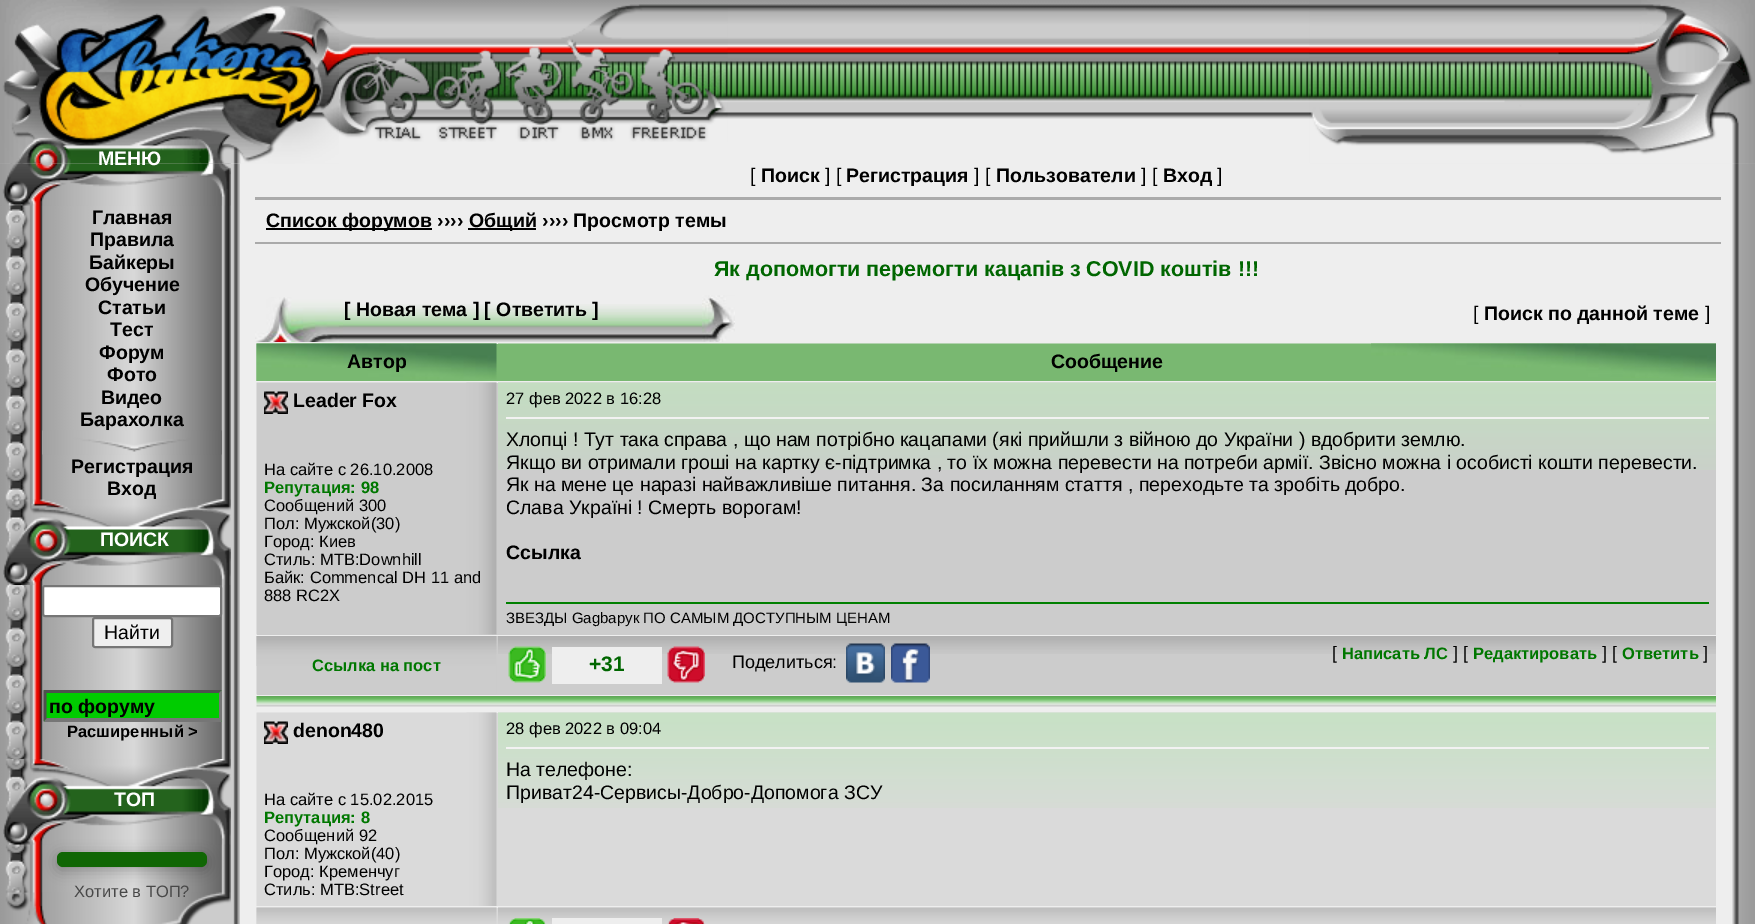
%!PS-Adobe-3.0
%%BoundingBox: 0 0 1755 924
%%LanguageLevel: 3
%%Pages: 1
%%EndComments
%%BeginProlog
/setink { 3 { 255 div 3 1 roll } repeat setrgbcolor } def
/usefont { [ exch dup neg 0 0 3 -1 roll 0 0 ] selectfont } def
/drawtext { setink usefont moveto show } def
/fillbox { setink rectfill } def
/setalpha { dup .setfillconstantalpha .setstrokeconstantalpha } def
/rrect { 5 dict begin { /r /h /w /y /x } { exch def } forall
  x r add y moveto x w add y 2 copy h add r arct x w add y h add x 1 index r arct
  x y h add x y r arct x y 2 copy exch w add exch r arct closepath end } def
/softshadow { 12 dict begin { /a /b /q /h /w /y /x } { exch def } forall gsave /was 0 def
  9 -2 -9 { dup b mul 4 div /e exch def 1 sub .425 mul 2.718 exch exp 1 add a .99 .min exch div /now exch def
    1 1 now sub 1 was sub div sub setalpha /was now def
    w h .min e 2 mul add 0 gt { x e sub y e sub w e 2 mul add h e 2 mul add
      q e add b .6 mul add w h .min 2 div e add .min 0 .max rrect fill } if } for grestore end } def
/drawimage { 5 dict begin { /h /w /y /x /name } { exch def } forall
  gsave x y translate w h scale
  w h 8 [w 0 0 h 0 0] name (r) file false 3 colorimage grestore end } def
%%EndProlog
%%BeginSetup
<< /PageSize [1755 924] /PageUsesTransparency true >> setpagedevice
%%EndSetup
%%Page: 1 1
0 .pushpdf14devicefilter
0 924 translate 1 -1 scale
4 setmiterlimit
0 0 1755 924 238 238 238 fillbox
(assets/img1.rgb) 339 0 971 119 drawimage
(assets/img14.rgb) 1732 163 23 761 drawimage
(assets/img2.rgb) 1309 0 446 164 drawimage
(assets/img7.rgb) 0 163 240 761 drawimage
(assets/img8.rgb) 0 163 231 761 drawimage
(assets/img9.rgb) 0 163 231 43 drawimage
(assets/img3.rgb) 0 0 339 164 drawimage
(assets/img4.rgb) 339 4 389 138 drawimage
(assets/img5.rgb) 1309 80 446 84 drawimage
(assets/img6.rgb) 1734 163 21 1 drawimage
(МЕНЮ) 98 165 /LiberationSans-Bold 19.5 255 255 255 drawtext
(Главная) 92 224 /LiberationSans-Bold 19.5 0 0 0 drawtext
(Правила) 90 246 /LiberationSans-Bold 19.5 0 0 0 drawtext
(Байкеры) 89 269 /LiberationSans-Bold 19.5 0 0 0 drawtext
(Обучение) 85 291 /LiberationSans-Bold 19.5 0 0 0 drawtext
(Статьи) 98 314 /LiberationSans-Bold 19.5 0 0 0 drawtext
(Тест) 110 336 /LiberationSans-Bold 19.5 0 0 0 drawtext
(Форум) 99 359 /LiberationSans-Bold 19.5 0 0 0 drawtext
(Фото) 107 381 /LiberationSans-Bold 19.5 0 0 0 drawtext
(Видео) 101 404 /LiberationSans-Bold 19.5 0 0 0 drawtext
(Барахолка) 80 426 /LiberationSans-Bold 19.5 0 0 0 drawtext
(assets/img10.rgb) 42 430 180 25 drawimage
(Регистрация) 71 473 /LiberationSans-Bold 19.5 0 0 0 drawtext
(Вход) 107 495 /LiberationSans-Bold 19.5 0 0 0 drawtext
(assets/img11.rgb) 3 499 228 86 drawimage
(ПОИСК) 100 546 /LiberationSans-Bold 19.5 255 255 255 drawtext
43 586 178 30 2 rrect gsave fill grestore
118 118 118 setink
2 setlinewidth
stroke
239 239 239 setink
93 618 79 29 2 rrect gsave fill grestore
118 118 118 setink
stroke
(Найти) 104 639 /LiberationSans-Regular 19.5 0 0 0 drawtext
44 690 178 32 0 204 0 fillbox
79 79 79 setink
44 690 moveto 222 690 lineto 219 693 lineto 46 693 lineto closepath fill
118 118 118 setink
222 690 moveto 222 721.5 lineto 219 718.5 lineto 219 693 lineto closepath fill
222 722 moveto 44 722 lineto 46 718 lineto 219 718 lineto closepath fill
79 79 79 setink
43.5 721.5 moveto 43.5 690 lineto 46.5 693 lineto 46.5 718.5 lineto closepath fill
(по форуму) 49 713 /LiberationSans-Bold 19.5 0 0 0 drawtext
(Расширенный >) 67 737 /LiberationSans-Bold 16.5 0 0 0 drawtext
(assets/img12.rgb) 3 759 228 86 drawimage
(ТОП) 114 806 /LiberationSans-Bold 19.5 255 255 255 drawtext
0 0 0 setink
57 855 150 15 6 7 0.26 softshadow
16 102 4 setink
57 852 150 15 6 rrect fill
(assets/img13.rgb) 5 892 226 32 drawimage
(Хотите в ТОП?) 74 897 /LiberationSans-Regular 16.5 72 72 72 drawtext
([) 750 182 /LiberationSans-Regular 19.5 0 0 0 drawtext
(Поиск) 761 182 /LiberationSans-Bold 19.5 0 0 0 drawtext
(] [) 825 182 /LiberationSans-Regular 19.5 0 0 0 drawtext
(Регистрация) 846 182 /LiberationSans-Bold 19.5 0 0 0 drawtext
(] [) 974 182 /LiberationSans-Regular 19.5 0 0 0 drawtext
(Пользователи) 996 182 /LiberationSans-Bold 19.5 0 0 0 drawtext
(] [) 1141 182 /LiberationSans-Regular 19.5 0 0 0 drawtext
(Вход) 1163 182 /LiberationSans-Bold 19.5 0 0 0 drawtext
(]) 1217 182 /LiberationSans-Regular 19.5 0 0 0 drawtext
255 197 1466 3 170 170 170 fillbox
266 228 166 2 0 0 0 fillbox
(Список форумов ››››) 266 227 /LiberationSans-Bold 19.5 0 0 0 drawtext
468 228 68 2 0 0 0 fillbox
(Общий ›››› Просмотр темы) 469 227 /LiberationSans-Bold 19.5 0 0 0 drawtext
255 242 1466 2 170 170 170 fillbox
(Як допомогти перемогти кацапів з COVID коштів !!!) 714 276 /LiberationSans-Bold 21.45 0 102 0 drawtext
(assets/img15.rgb) 343 304 359 38 drawimage
(assets/img16.rgb) 255 297 88 45 drawimage
([ Новая тема ] [ Ответить ]) 344 316 /LiberationSans-Bold 19.5 0 0 0 drawtext
(assets/img17.rgb) 702 295 33 47 drawimage
([) 1473 320 /LiberationSans-Regular 19.5 0 0 0 drawtext
(Поиск по данной теме) 1484 320 /LiberationSans-Bold 19.5 0 0 0 drawtext
(]) 1705 320 /LiberationSans-Regular 19.5 0 0 0 drawtext
496 344 1220 37 121 184 113 fillbox
(assets/img18.rgb) 256 343 241 38 drawimage
(Автор) 347 368 /LiberationSans-Bold 19.5 0 0 0 drawtext
(assets/img19.rgb) 498 343 1218 35 drawimage
(Сообщение) 1051 368 /LiberationSans-Bold 19.5 0 0 0 drawtext
257 383 1459 252 204 204 204 fillbox
(assets/img20.rgb) 256 382 241 253 drawimage
(assets/img21.rgb) 264 391 24 23 drawimage
(Leader Fox) 293 407 /LiberationSans-Bold 19.5 0 0 0 drawtext
(На сайте с 26.10.2008) 264 475 /LiberationSans-Regular 16.5 0 0 0 drawtext
(Репутация: 98) 264 493 /LiberationSans-Bold 16.5 0 119 0 drawtext
(Сообщений 300) 264 511 /LiberationSans-Regular 16.5 0 0 0 drawtext
(Пол: Мужской\(30\)) 264 529 /LiberationSans-Regular 16.5 0 0 0 drawtext
(Город: Киев) 264 547 /LiberationSans-Regular 16.5 0 0 0 drawtext
(Стиль: MTB:Downhill) 264 565 /LiberationSans-Regular 16.5 0 0 0 drawtext
(Байк: Commencal DH 11 and) 264 583 /LiberationSans-Regular 16.5 0 0 0 drawtext
(888 RC2X) 264 601 /LiberationSans-Regular 16.5 0 0 0 drawtext
(assets/img22.rgb) 498 382 1218 88 drawimage
(27 фев 2022 в 16:28) 506 404 /LiberationSans-Regular 16.5 0 0 0 drawtext
506 417 1203 2 242 242 242 fillbox
(Хлопці ! Тут така справа , що нам потрібно кацапами \(які прийшли з війною до України \) вдобрити землю.) 506 446 /LiberationSans-Regular 19.5 0 0 0 drawtext
(Якщо ви отримали гроші на картку є-підтримка , то їх можна перевести на потреби армії. Звісно можна і особисті кошти перевести.) 506 469 /LiberationSans-Regular 19.5 0 0 0 drawtext
(Як на мене це наразі найважливіше питання. За посиланням стаття , переходьте та зробіть добро.) 506 491 /LiberationSans-Regular 19.5 0 0 0 drawtext
(Слава Україні ! Смерть ворогам!) 506 514 /LiberationSans-Regular 19.5 0 0 0 drawtext
(Ссылка) 506 559 /LiberationSans-Bold 19.5 0 0 0 drawtext
506 602 1203 2 0 128 0 fillbox
(ЗВЕЗДЫ Gagbарук ПО САМЫМ ДОСТУПНЫМ ЦЕНАМ) 506 623 /LiberationSans-Regular 15 0 0 0 drawtext
257 636 1459 59 204 204 204 fillbox
(assets/img23.rgb) 256 636 241 59 drawimage
(Cсылка на пост) 312 671 /LiberationSans-Bold 16.5 0 119 0 drawtext
(assets/img24.rgb) 498 636 1218 18 drawimage
(assets/img25.rgb) 508 646 38 37 drawimage
552 647 110 37 238 238 238 fillbox
(+31) 589 671 /LiberationSans-Bold 21 0 102 0 drawtext
(assets/img26.rgb) 667 646 38 37 drawimage
(Поделиться:) 732 668 /LiberationSans-Regular 18 0 0 0 drawtext
(assets/img27.rgb) 846 643 39 40 drawimage
(assets/img28.rgb) 891 643 39 40 drawimage
([) 1332 659 /LiberationSans-Regular 18 0 0 0 drawtext
(Написать ЛС) 1342 659 /LiberationSans-Bold 16.5 0 119 0 drawtext
(] [) 1453 659 /LiberationSans-Regular 18 0 0 0 drawtext
(Редактировать) 1473 659 /LiberationSans-Bold 16.5 0 119 0 drawtext
(] [) 1602 659 /LiberationSans-Regular 18 0 0 0 drawtext
(Ответить) 1622 659 /LiberationSans-Bold 16.5 0 119 0 drawtext
(]) 1703 659 /LiberationSans-Regular 18 0 0 0 drawtext
(assets/img29.rgb) 256 696 1460 15 drawimage
496 713 1220 193 218 218 218 fillbox
(assets/img30.rgb) 256 712 241 194 drawimage
(assets/img31.rgb) 264 721 24 23 drawimage
(denon480) 293 737 /LiberationSans-Bold 19.5 0 0 0 drawtext
(На сайте с 15.02.2015) 264 805 /LiberationSans-Regular 16.5 0 0 0 drawtext
(Репутация: 8) 264 823 /LiberationSans-Bold 16.5 0 119 0 drawtext
(Сообщений 92) 264 841 /LiberationSans-Regular 16.5 0 0 0 drawtext
(Пол: Мужской\(40\)) 264 859 /LiberationSans-Regular 16.5 0 0 0 drawtext
(Город: Кременчуг) 264 877 /LiberationSans-Regular 16.5 0 0 0 drawtext
(Стиль: MTB:Street) 264 895 /LiberationSans-Regular 16.5 0 0 0 drawtext
(assets/img32.rgb) 498 712 1218 96 drawimage
(28 фев 2022 в 09:04) 506 734 /LiberationSans-Regular 16.5 0 0 0 drawtext
506 747 1203 2 242 242 242 fillbox
(На телефоне:) 506 776 /LiberationSans-Regular 19.5 0 0 0 drawtext
(Приват24-Сервисы-Добро-Допомога ЗСУ) 506 799 /LiberationSans-Regular 19.5 0 0 0 drawtext
496 908 2 16 218 218 218 fillbox
(assets/img33.rgb) 256 907 241 17 drawimage
(assets/img34.rgb) 498 907 1218 17 drawimage
(assets/img35.rgb) 508 918 38 6 drawimage
552 918 110 6 238 238 238 fillbox
(assets/img36.rgb) 667 918 38 6 drawimage
.poppdf14devicefilter showpage
%%EOF
